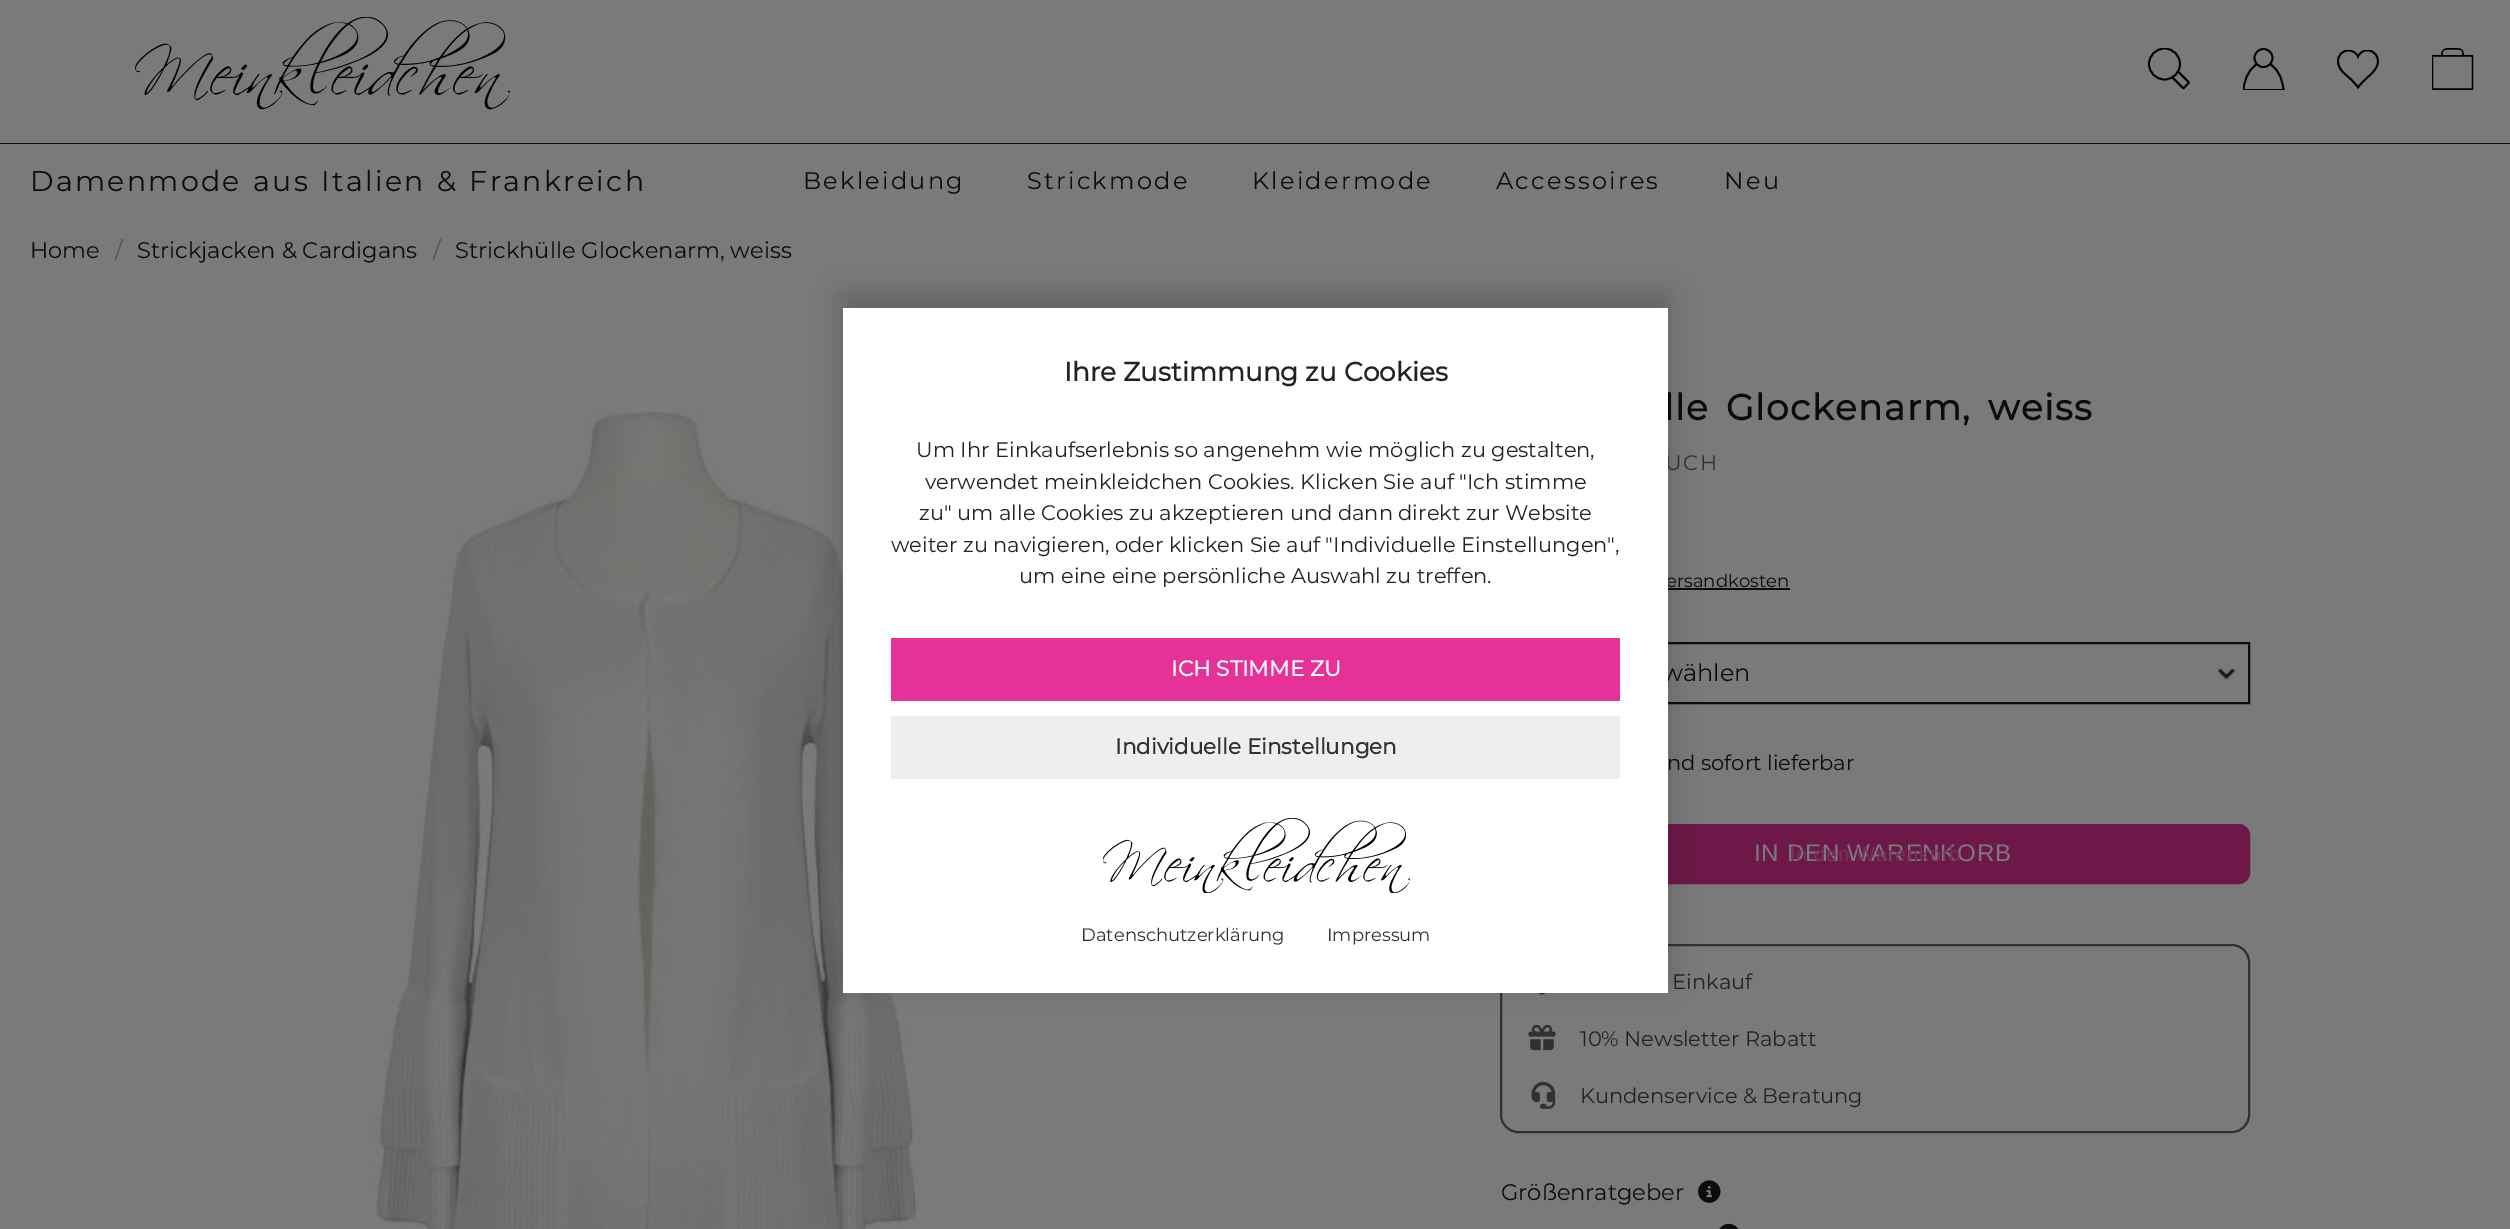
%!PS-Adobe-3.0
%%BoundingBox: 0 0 2510 1229
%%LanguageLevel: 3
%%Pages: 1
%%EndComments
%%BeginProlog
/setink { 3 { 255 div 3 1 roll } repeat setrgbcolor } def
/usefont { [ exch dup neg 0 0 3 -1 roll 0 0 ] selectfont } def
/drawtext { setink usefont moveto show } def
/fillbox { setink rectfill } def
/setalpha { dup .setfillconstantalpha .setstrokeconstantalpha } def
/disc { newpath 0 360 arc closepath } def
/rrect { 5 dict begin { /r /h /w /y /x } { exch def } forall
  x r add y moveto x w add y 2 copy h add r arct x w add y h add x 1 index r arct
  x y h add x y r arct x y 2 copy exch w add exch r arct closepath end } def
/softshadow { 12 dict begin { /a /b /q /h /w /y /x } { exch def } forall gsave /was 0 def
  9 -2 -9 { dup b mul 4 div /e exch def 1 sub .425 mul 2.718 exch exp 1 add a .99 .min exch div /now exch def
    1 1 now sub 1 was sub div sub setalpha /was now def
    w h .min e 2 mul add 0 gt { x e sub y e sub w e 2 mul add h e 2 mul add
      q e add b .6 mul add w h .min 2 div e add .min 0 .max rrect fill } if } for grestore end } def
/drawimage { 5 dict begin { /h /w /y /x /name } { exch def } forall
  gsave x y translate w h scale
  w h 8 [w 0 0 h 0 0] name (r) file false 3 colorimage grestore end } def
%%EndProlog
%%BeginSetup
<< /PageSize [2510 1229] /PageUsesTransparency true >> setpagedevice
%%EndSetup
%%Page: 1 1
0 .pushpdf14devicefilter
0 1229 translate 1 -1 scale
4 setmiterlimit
0 0 2510 1229 122 122 122 fillbox
0 143 2510 1 12 12 12 fillbox
(assets/img1.rgb) 135 17 375 93 drawimage
gsave
2148 48 42 42 rectclip
0 0 0 setink
1.8 setlinewidth
2164.5 64 15.5 disc stroke
grestore
0 0 0 setink
1.8 setlinewidth
1 setlinejoin
2178 71.5 moveto 2189 82.5 lineto 2183.5 88.5 lineto 2172.5 77.5 lineto stroke
gsave
2243 48 42 42 rectclip
2257.5 64 moveto 2246.5 69.5 2244 84 2243.5 90 curveto 2263.5 90 lineto 2269.5 64 moveto 2280.5 69.5 2283 84 2283.5 90 curveto 2263.5 90 lineto stroke
grestore
0 setlinejoin
2263.5 58 9 disc stroke
gsave
2337 50 42 39 rectclip
2348.5 50.5 moveto 2342.5 50.5 2338 55 2338 61 curveto 2338 72.5 2350 75.5 2358 87.5 curveto 2363 80 2371.5 75.5 2376 68 curveto 2384.5 53.5 2364.5 43 2358 56.5 curveto 2356.5 53 2352.5 50.5 2348.5 50.5 curveto closepath stroke
grestore
(assets/img2.rgb) 2432 48 42 42 drawimage
/Montserrat-Regular 28.5 usefont
12 12 12 setink
30 191 moveto 1.5 0 32 2.25 0 (Damenmode aus Italien & Frankreich) awidthshow
/Montserrat-Regular 24 usefont
803 189 moveto 2.25 0 (Bekleidung) ashow
1027 189 moveto 2.25 0 (Strickmode) ashow
1252 189 moveto 2.25 0 (Kleidermode) ashow
1496 189 moveto 2.25 0 (Accessoires) ashow
1724 189 moveto 2.25 0 (Neu) ashow
(Home) 30 258 /Montserrat-Regular 22.5 12 12 12 drawtext
(/) 115 258 /Montserrat-Regular 22.5 82 82 82 drawtext
(Strickjacken & Cardigans) 137 258 /Montserrat-Regular 22.5 12 12 12 drawtext
(/) 433 258 /Montserrat-Regular 22.5 82 82 82 drawtext
(Strickhülle Glockenarm, weiss) 455 258 /Montserrat-Regular 22.5 12 12 12 drawtext
(assets/img3.rgb) 371 411 548 818 drawimage
/Montserrat-Bold 36 usefont
1664 420 moveto 5 0 32 1.5 0 (lle Glockenarm, weiss) awidthshow
/Montserrat-Regular 21 usefont
50 50 50 setink
1665 470 moveto 1 0 32 1.5 0 (UCH) awidthshow
(ersandkosten) 1666 587 /Montserrat-Regular 18 12 12 12 drawtext
1668 588 122 2 12 12 12 fillbox
2 setlinewidth
1501 643 748 60 rectstroke
(wählen) 1662 681 /Montserrat-Regular 24 12 12 12 drawtext
(assets/img4.rgb) 2217 668 19 12 drawimage
(nd sofort lieferbar) 1667 770 /Montserrat-Regular 21 12 12 12 drawtext
110 24 73 setink
1501 825 748 58 10 rrect gsave fill grestore
stroke
/LiberationSans-Regular 24 usefont
122 122 122 setink
1754 861 moveto 0.75 0 (IN DEN WARENKORB) ashow
/LiberationSans-Regular 20 usefont
114 53 88 setink
1790 861 moveto 0.75 0 (In den Warenkorb) ashow
49 49 49 setink
1501 945 748 187 17 rrect stroke
(Einkauf) 1672 989 /Montserrat-Regular 21 35 35 35 drawtext
(assets/img5.rgb) 1538 993 8 2 drawimage
(assets/img6.rgb) 1528 1024 28 27 drawimage
(10% Newsletter Rabatt) 1580 1046 /Montserrat-Regular 21 35 35 35 drawtext
(assets/img7.rgb) 1531 1081 25 28 drawimage
(Kundenservice & Beratung) 1580 1103 /Montserrat-Regular 21 35 35 35 drawtext
(Größenratgeber) 1501 1200 /Montserrat-Regular 22.5 12 12 12 drawtext
(assets/img8.rgb) 1698 1180 23 23 drawimage
(assets/img9.rgb) 1719 1223 20 6 drawimage
0 0 0 setink
843 296 825 685 0 15 0.2 softshadow
843 308 825 685 255 255 255 fillbox
(Ihre Zustimmung zu Cookies) 1064 381 /Montserrat-Bold 26.4 35 35 35 drawtext
(Um Ihr Einkaufserlebnis so angenehm wie möglich zu gestalten,) 916 457 /Montserrat-Regular 21 35 35 35 drawtext
(verwendet meinkleidchen Cookies. Klicken Sie auf "Ich stimme) 925 489 /Montserrat-Regular 21 35 35 35 drawtext
(zu" um alle Cookies zu akzeptieren und dann direkt zur Website) 919 520 /Montserrat-Regular 21 35 35 35 drawtext
(weiter zu navigieren, oder klicken Sie auf "Individuelle Einstellungen",) 891 552 /Montserrat-Regular 21 35 35 35 drawtext
(um eine eine persönliche Auswahl zu treffen.) 1019 583 /Montserrat-Regular 21 35 35 35 drawtext
891 638 729 63 230 49 152 fillbox
(ICH STIMME ZU) 1171 676 /Montserrat-Bold 21.6 255 255 255 drawtext
891 716 729 63 238 238 238 fillbox
(Individuelle Einstellungen) 1115 754 /Montserrat-Bold 21.6 50 50 50 drawtext
(assets/img10.rgb) 1103 818 307 75 drawimage
(Datenschutzerklärung) 1081 941 /Montserrat-Regular 18 50 50 50 drawtext
(Impressum) 1327 941 /Montserrat-Regular 18 50 50 50 drawtext
.poppdf14devicefilter showpage
%%EOF
